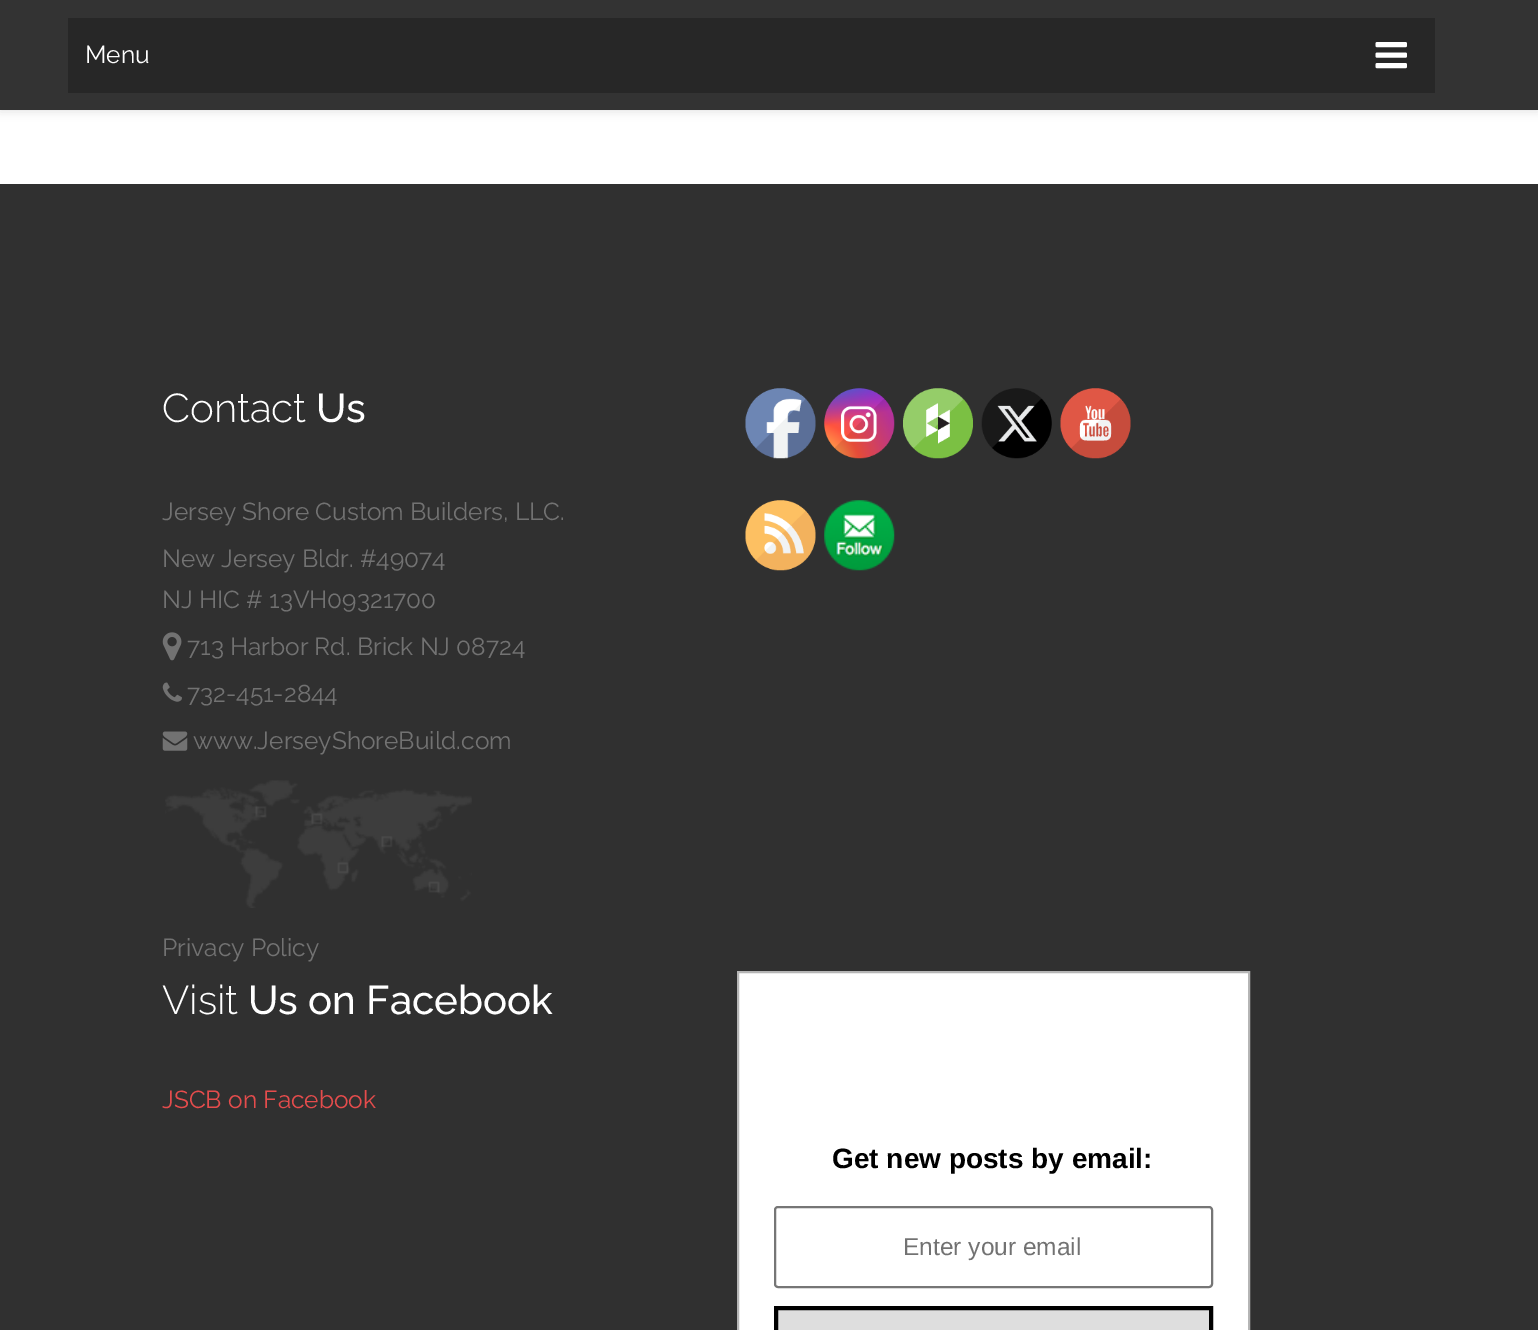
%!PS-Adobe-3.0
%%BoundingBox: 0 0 1538 1330
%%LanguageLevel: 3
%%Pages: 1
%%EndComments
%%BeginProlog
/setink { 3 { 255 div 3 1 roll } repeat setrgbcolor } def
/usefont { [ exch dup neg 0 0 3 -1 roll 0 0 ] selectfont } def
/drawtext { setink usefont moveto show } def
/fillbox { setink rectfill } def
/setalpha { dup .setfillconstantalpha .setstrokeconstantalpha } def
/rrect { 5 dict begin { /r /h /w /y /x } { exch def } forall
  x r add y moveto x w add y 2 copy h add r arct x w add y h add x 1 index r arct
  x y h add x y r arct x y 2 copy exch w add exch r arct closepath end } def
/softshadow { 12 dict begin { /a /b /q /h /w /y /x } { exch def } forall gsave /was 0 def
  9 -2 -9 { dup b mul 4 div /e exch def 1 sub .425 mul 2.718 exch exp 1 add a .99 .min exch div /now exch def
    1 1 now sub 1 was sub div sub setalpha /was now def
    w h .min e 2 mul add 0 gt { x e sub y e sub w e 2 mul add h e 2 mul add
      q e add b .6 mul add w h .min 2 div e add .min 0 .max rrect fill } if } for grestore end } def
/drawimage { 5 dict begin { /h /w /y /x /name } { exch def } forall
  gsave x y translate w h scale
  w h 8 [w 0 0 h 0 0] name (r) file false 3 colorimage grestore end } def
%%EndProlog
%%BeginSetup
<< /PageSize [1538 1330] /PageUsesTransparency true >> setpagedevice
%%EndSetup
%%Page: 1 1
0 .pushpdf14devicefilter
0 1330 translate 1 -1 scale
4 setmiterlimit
0 0 1538 1330 255 255 255 fillbox
0 0 0 setink
0 2 1538 110 0 4.5 0.1 softshadow
0 0 1538 110 51 51 51 fillbox
68 18 1367 75 39 39 39 fillbox
(Menu) 85 63 /Raleway-Regular 24.5 255 255 255 drawtext
(assets/img1.rgb) 1375 42 32 27 drawimage
0 184 1538 1146 48 48 48 fillbox
(Contact) 162 422 /Raleway-Light 40.25 255 255 255 drawtext
(Us) 316 422 /Raleway-Medium 40.25 255 255 255 drawtext
(Jersey Shore Custom Builders, LLC.) 162 520 /Raleway-Regular 24.5 114 114 114 drawtext
(New Jersey Bldr. #49074) 162 567 /Raleway-Regular 24.5 114 114 114 drawtext
(NJ HIC # 13VH09321700) 162 608 /Raleway-Regular 24.5 114 114 114 drawtext
(assets/img2.rgb) 162 632 20 29 drawimage
(713 Harbor Rd. Brick NJ 08724) 187 655 /Raleway-Regular 24.5 114 114 114 drawtext
(assets/img3.rgb) 162 682 20 20 drawimage
(732-451-2844) 187 702 /Raleway-Regular 24.5 114 114 114 drawtext
(assets/img4.rgb) 162 731 26 20 drawimage
(www.JerseyShoreBuild.com) 193 749 /Raleway-Regular 24.5 114 114 114 drawtext
(assets/img5.rgb) 165 780 307 128 drawimage
(Privacy Policy) 162 956 /Raleway-Regular 24.5 114 114 114 drawtext
(assets/img6.rgb) 745 388 71 71 drawimage
(assets/img7.rgb) 824 388 71 71 drawimage
(assets/img8.rgb) 903 388 70 71 drawimage
(assets/img9.rgb) 981 388 71 71 drawimage
(assets/img10.rgb) 1060 388 71 71 drawimage
(assets/img11.rgb) 745 500 71 71 drawimage
(assets/img12.rgb) 824 500 71 71 drawimage
(Visit) 162 1014 /Raleway-Light 40.25 255 255 255 drawtext
(Us on Facebook) 248 1014 /Raleway-Medium 40.25 255 255 255 drawtext
(JSCB on Facebook) 162 1108 /Raleway-Regular 24.5 229 76 76 drawtext
255 255 255 setink
738 972 moveto 1249 972 lineto 1249 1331 lineto 738 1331 lineto closepath gsave fill grestore
181 181 181 setink
2 setlinewidth
stroke
(Get new posts by email:) 832 1168 /LiberationSans-Bold 28 0 0 0 drawtext
118 118 118 setink
775 1207 437 80 3 rrect stroke
(Enter your email) 903 1255 /LiberationSans-Regular 24.5 114 114 114 drawtext
222 222 222 setink
776 1308 moveto 1211 1308 lineto 1211 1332 lineto 776 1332 lineto closepath gsave fill grestore
0 0 0 setink
4 setlinewidth
stroke
.poppdf14devicefilter showpage
%%EOF
